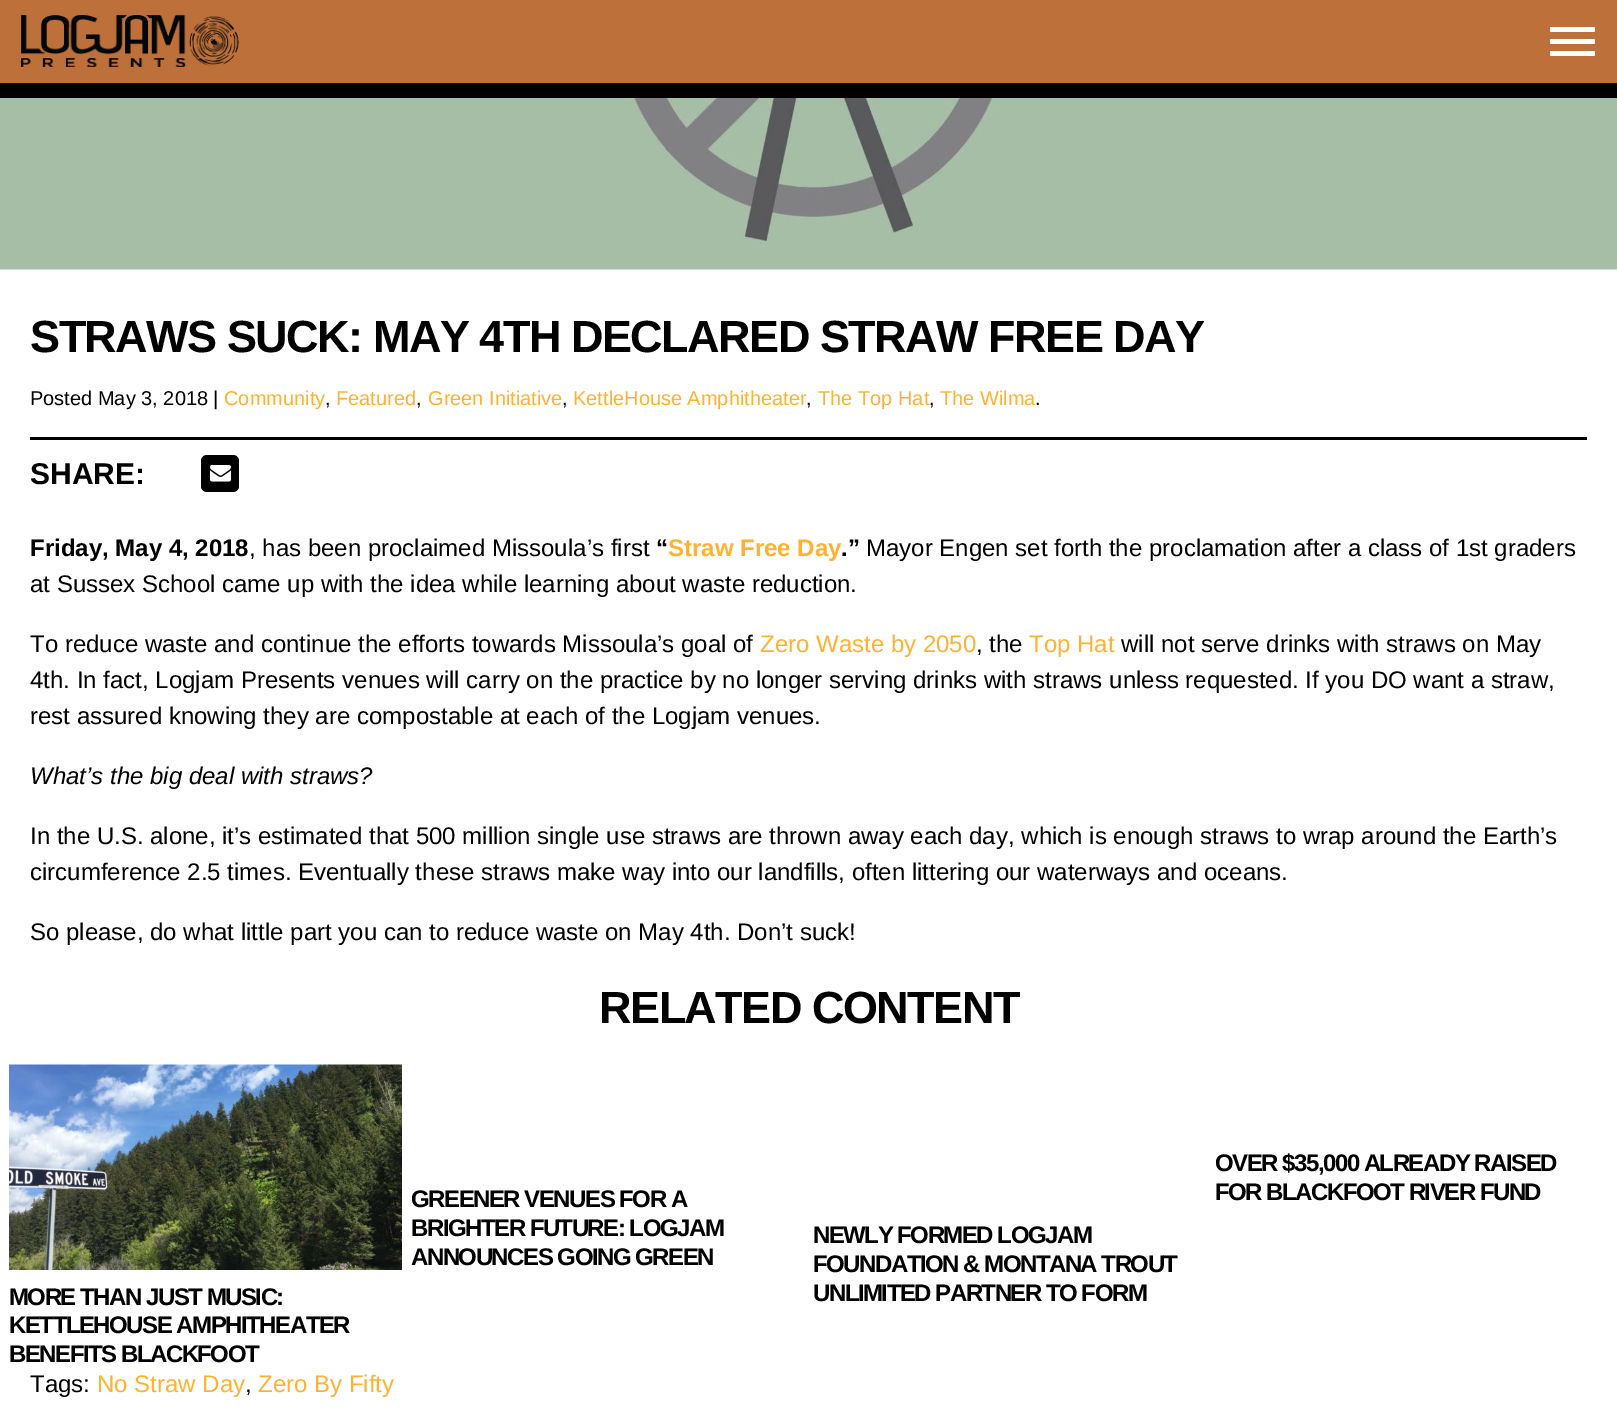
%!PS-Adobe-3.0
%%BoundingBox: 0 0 1617 1413
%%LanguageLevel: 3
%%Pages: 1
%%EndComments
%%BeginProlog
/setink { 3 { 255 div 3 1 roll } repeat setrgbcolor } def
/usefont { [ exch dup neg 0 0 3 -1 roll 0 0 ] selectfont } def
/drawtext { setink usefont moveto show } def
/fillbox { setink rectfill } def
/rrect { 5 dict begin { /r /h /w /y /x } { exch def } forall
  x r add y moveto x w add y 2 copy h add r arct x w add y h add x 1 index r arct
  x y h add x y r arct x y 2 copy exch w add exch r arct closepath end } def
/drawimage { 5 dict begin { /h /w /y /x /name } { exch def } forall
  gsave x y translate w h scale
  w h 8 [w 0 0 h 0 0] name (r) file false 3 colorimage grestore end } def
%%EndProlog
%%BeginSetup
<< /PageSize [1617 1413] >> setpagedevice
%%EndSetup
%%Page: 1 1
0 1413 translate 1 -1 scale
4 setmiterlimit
0 0 1617 1413 255 255 255 fillbox
0 0 1617 83 189 112 58 fillbox
0 83 1617 15 0 0 0 fillbox
(assets/img1.rgb) 21 15 218 52 drawimage
255 255 255 setink
1550 27 45 5 1.5 rrect fill
1550 39 45 5 1.5 rrect fill
1550 51 45 5 1.5 rrect fill
(assets/img2.rgb) 0 98 1617 172 drawimage
/LiberationSans-Bold 45 usefont
0 0 0 setink
30 352 moveto -1.5 0 (STRAWS SUCK: MAY 4TH DECLARED STRAW FREE DAY) ashow
(Posted May 3, 2018 |) 30 405 /LiberationSans-Regular 20 0 0 0 drawtext
(Community) 224 405 /LiberationSans-Regular 20 255 177 50 drawtext
(,) 325 405 /LiberationSans-Regular 20 0 0 0 drawtext
(Featured) 336 405 /LiberationSans-Regular 20 255 177 50 drawtext
(,) 416 405 /LiberationSans-Regular 20 0 0 0 drawtext
(Green Initiative) 428 405 /LiberationSans-Regular 20 255 177 50 drawtext
(,) 562 405 /LiberationSans-Regular 20 0 0 0 drawtext
(KettleHouse Amphitheater) 573 405 /LiberationSans-Regular 20 255 177 50 drawtext
(,) 806 405 /LiberationSans-Regular 20 0 0 0 drawtext
(The Top Hat) 818 405 /LiberationSans-Regular 20 255 177 50 drawtext
(,) 929 405 /LiberationSans-Regular 20 0 0 0 drawtext
(The Wilma) 940 405 /LiberationSans-Regular 20 255 177 50 drawtext
(.) 1035 405 /LiberationSans-Regular 20 0 0 0 drawtext
30 437 1557 3 0 0 0 fillbox
(SHARE:) 30 484 /LiberationSans-Bold 30 0 0 0 drawtext
201 455 38 37 6 rrect fill
(assets/img3.rgb) 210 465 21 17 drawimage
(Friday, May 4, 2018) 30 556 /LiberationSans-Bold 24 0 0 0 drawtext
(, has been proclaimed Missoula’s first) 249 556 /LiberationSans-Regular 24 0 0 0 drawtext
(“) 656 556 /LiberationSans-Bold 24 0 0 0 drawtext
(Straw Free Day) 668 556 /LiberationSans-Bold 24 255 177 50 drawtext
(.”) 841 556 /LiberationSans-Bold 24 0 0 0 drawtext
(Mayor Engen set forth the proclamation after a class of 1st graders) 866 556 /LiberationSans-Regular 24 0 0 0 drawtext
(at Sussex School came up with the idea while learning about waste reduction.) 30 592 /LiberationSans-Regular 24 0 0 0 drawtext
(To reduce waste and continue the efforts towards Missoula’s goal of) 30 652 /LiberationSans-Regular 24 0 0 0 drawtext
(Zero Waste by 2050) 760 652 /LiberationSans-Regular 24 255 177 50 drawtext
(, the) 976 652 /LiberationSans-Regular 24 0 0 0 drawtext
(Top Hat) 1029 652 /LiberationSans-Regular 24 255 177 50 drawtext
(will not serve drinks with straws on May) 1121 652 /LiberationSans-Regular 24 0 0 0 drawtext
(4th. In fact, Logjam Presents venues will carry on the practice by no longer serving drinks with straws unless requested. If you DO want a straw,) 30 688 /LiberationSans-Regular 24 0 0 0 drawtext
(rest assured knowing they are compostable at each of the Logjam venues.) 30 724 /LiberationSans-Regular 24 0 0 0 drawtext
(What’s the big deal with straws?) 30 784 /LiberationSans-Italic 24 0 0 0 drawtext
(In the U.S. alone, it’s estimated that 500 million single use straws are thrown away each day, which is enough straws to wrap around the Earth’s) 30 844 /LiberationSans-Regular 24 0 0 0 drawtext
(circumference 2.5 times. Eventually these straws make way into our landfills, often littering our waterways and oceans.) 30 880 /LiberationSans-Regular 24 0 0 0 drawtext
(So please, do what little part you can to reduce waste on May 4th. Don’t suck!) 30 940 /LiberationSans-Regular 24 0 0 0 drawtext
/LiberationSans-Bold 45 usefont
599 1023 moveto -1.5 0 (RELATED CONTENT) ashow
/LiberationSans-Bold 24 usefont
1215 1171 moveto -1.5 0 (OVER $35,000 ALREADY RAISED) ashow
1215 1200 moveto -1.5 0 (FOR BLACKFOOT RIVER FUND) ashow
411 1207 moveto -1.5 0 (GREENER VENUES FOR A) ashow
411 1236 moveto -1.5 0 (BRIGHTER FUTURE: LOGJAM) ashow
411 1265 moveto -1.5 0 (ANNOUNCES GOING GREEN) ashow
813 1243 moveto -1.5 0 (NEWLY FORMED LOGJAM) ashow
813 1272 moveto -1.5 0 (FOUNDATION & MONTANA TROUT) ashow
813 1301 moveto -1.5 0 (UNLIMITED PARTNER TO FORM) ashow
(assets/img4.rgb) 9 1064 393 206 drawimage
9 1305 moveto -1.5 0 (MORE THAN JUST MUSIC:) ashow
9 1333 moveto -1.5 0 (KETTLEHOUSE AMPHITHEATER) ashow
9 1362 moveto -1.5 0 (BENEFITS BLACKFOOT) ashow
(Tags:) 30 1392 /LiberationSans-Regular 24 0 0 0 drawtext
(No Straw Day) 97 1392 /LiberationSans-Regular 24 255 177 50 drawtext
(,) 245 1392 /LiberationSans-Regular 24 0 0 0 drawtext
(Zero By Fifty) 258 1392 /LiberationSans-Regular 24 255 177 50 drawtext
showpage
%%EOF
